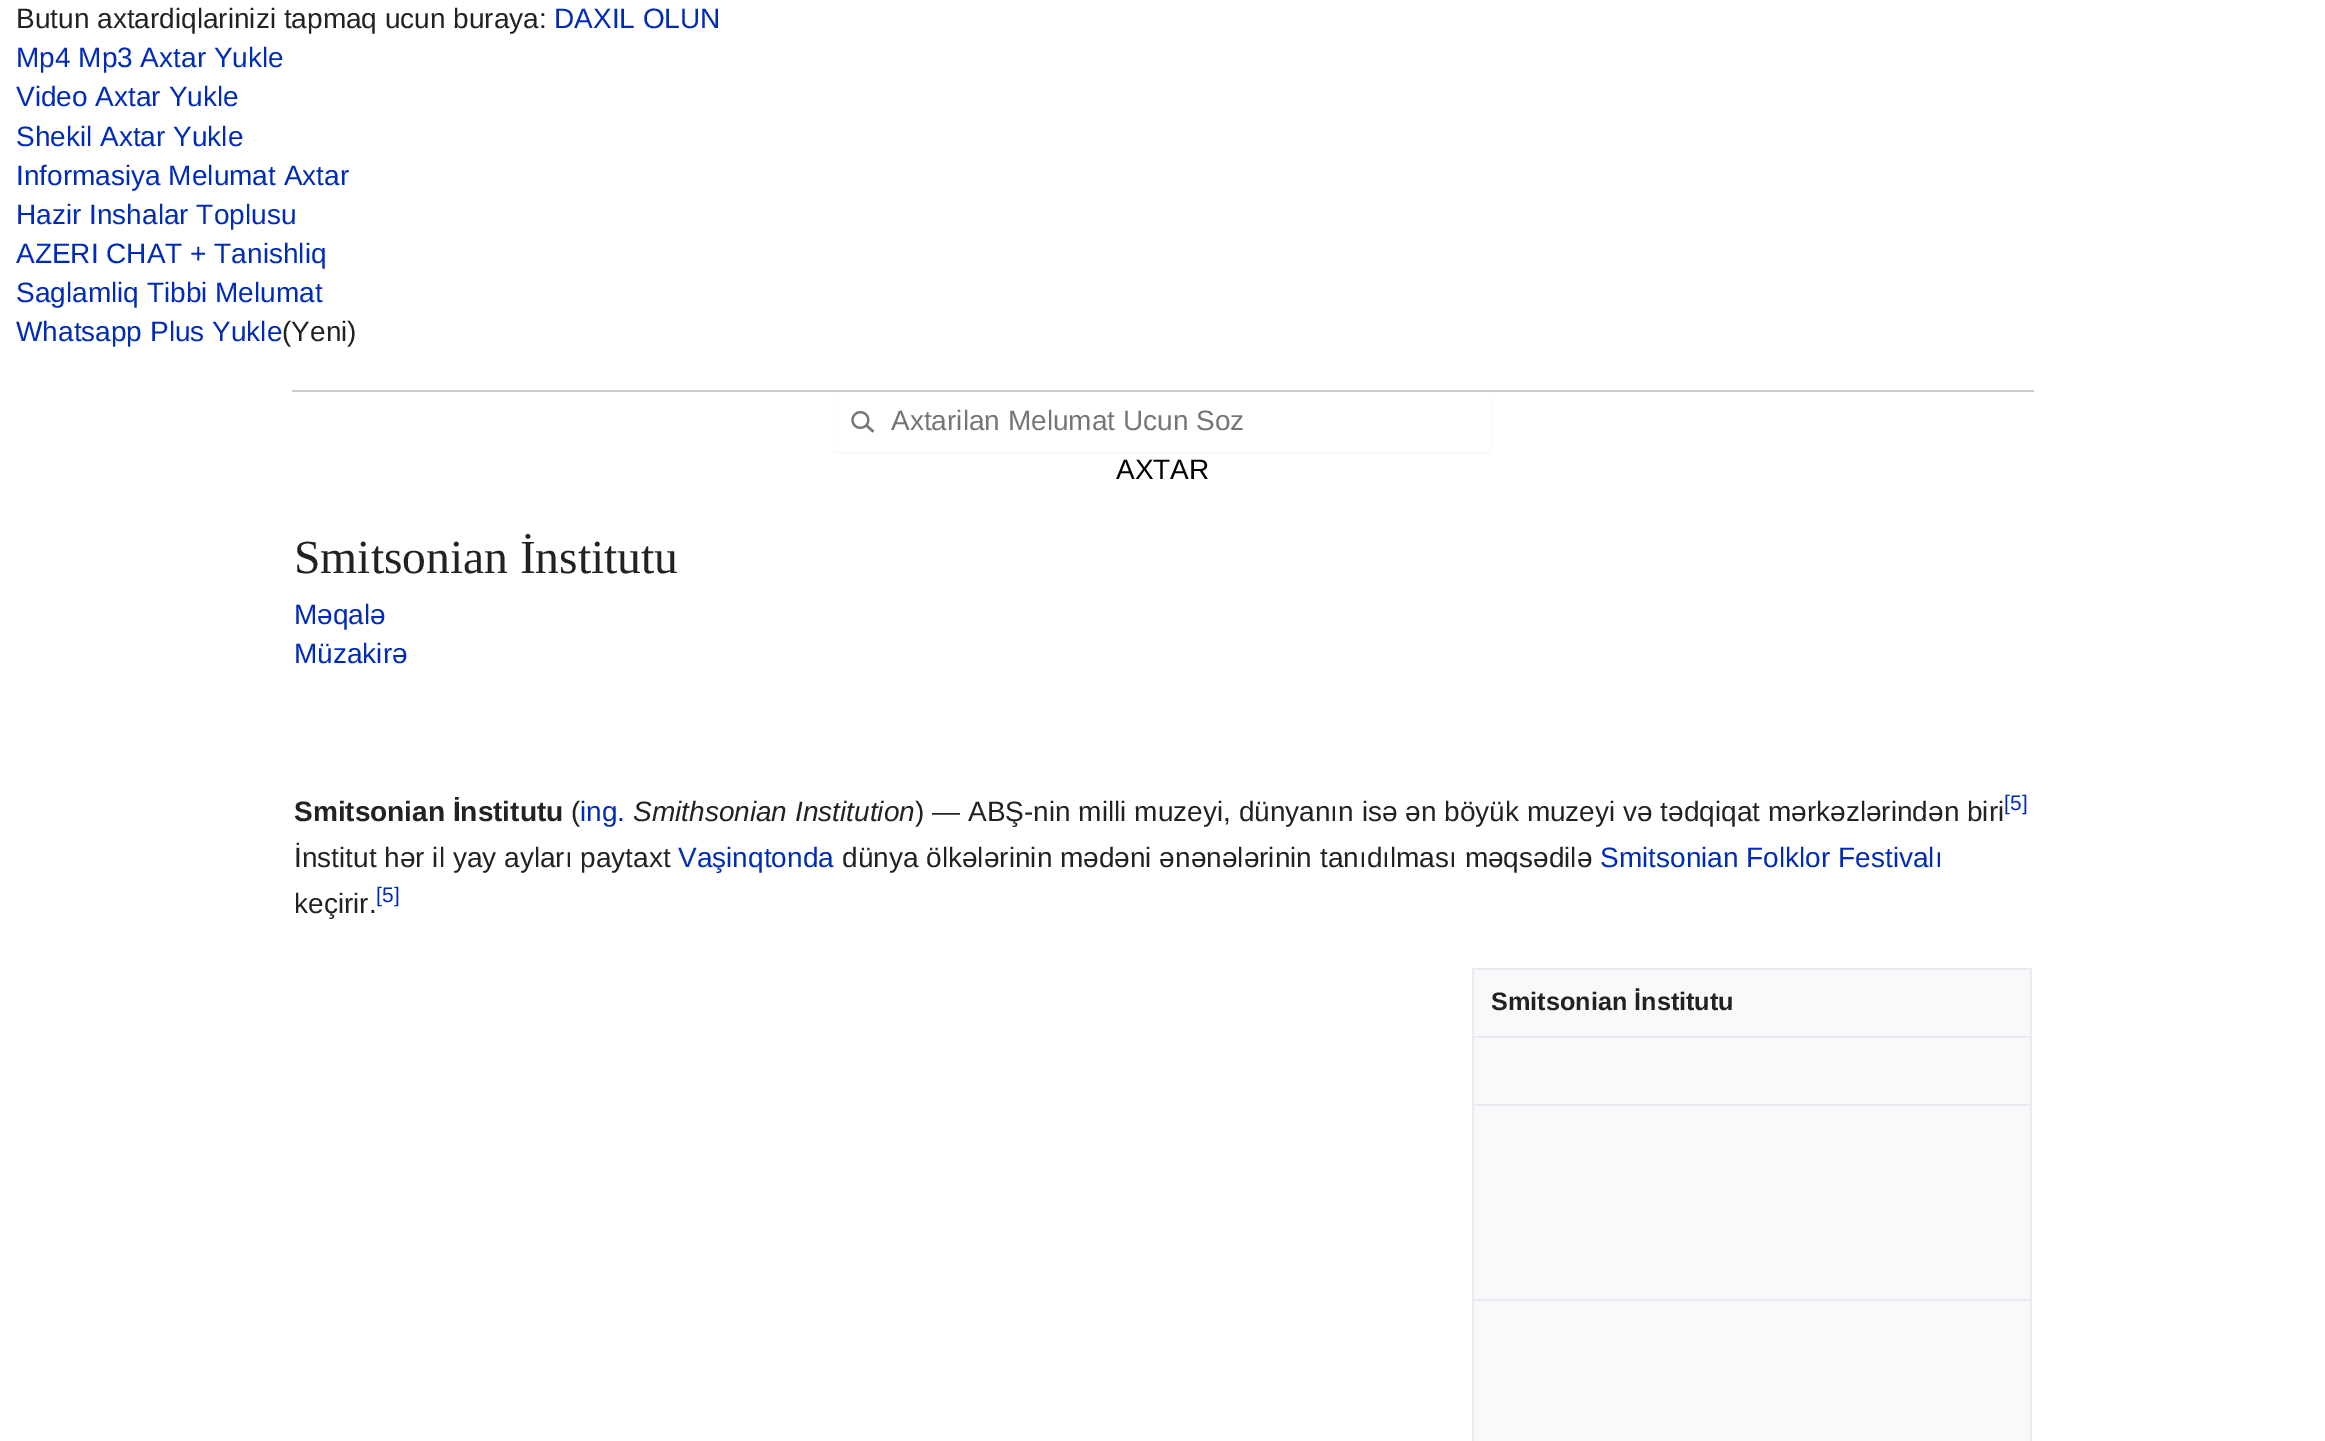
%!PS-Adobe-3.0
%%BoundingBox: 0 0 2325 1441
%%LanguageLevel: 3
%%Pages: 1
%%EndComments
%%BeginProlog
/setink { 3 { 255 div 3 1 roll } repeat setrgbcolor } def
/usefont { [ exch dup neg 0 0 3 -1 roll 0 0 ] selectfont } def
/drawtext { setink usefont moveto show } def
/fillbox { setink rectfill } def
/setalpha { dup .setfillconstantalpha .setstrokeconstantalpha } def
/rrect { 5 dict begin { /r /h /w /y /x } { exch def } forall
  x r add y moveto x w add y 2 copy h add r arct x w add y h add x 1 index r arct
  x y h add x y r arct x y 2 copy exch w add exch r arct closepath end } def
/softshadow { 12 dict begin { /a /b /q /h /w /y /x } { exch def } forall gsave /was 0 def
  9 -2 -9 { dup b mul 4 div /e exch def 1 sub .425 mul 2.718 exch exp 1 add a .99 .min exch div /now exch def
    1 1 now sub 1 was sub div sub setalpha /was now def
    w h .min e 2 mul add 0 gt { x e sub y e sub w e 2 mul add h e 2 mul add
      q e add b .6 mul add w h .min 2 div e add .min 0 .max rrect fill } if } for grestore end } def
/drawimage { 5 dict begin { /h /w /y /x /name } { exch def } forall
  gsave x y translate w h scale
  w h 8 [w 0 0 h 0 0] name (r) file false 3 colorimage grestore end } def
%%EndProlog
%%BeginSetup
<< /PageSize [2325 1441] /PageUsesTransparency true >> setpagedevice
%%EndSetup
%%Page: 1 1
0 .pushpdf14devicefilter
0 1441 translate 1 -1 scale
4 setmiterlimit
0 0 2325 1441 255 255 255 fillbox
(Butun axtardiqlarinizi tapmaq ucun buraya:) 16 28 /LiberationSans-Regular 28 34 34 34 drawtext
(DAXIL OLUN) 554 28 /LiberationSans-Regular 28 0 43 184 drawtext
(Mp4 Mp3 Axtar Yukle) 16 67 /LiberationSans-Regular 28 0 43 184 drawtext
(Video Axtar Yukle) 16 106 /LiberationSans-Regular 28 0 43 184 drawtext
(Shekil Axtar Yukle) 16 146 /LiberationSans-Regular 28 0 43 184 drawtext
(Informasiya Melumat Axtar) 16 185 /LiberationSans-Regular 28 0 43 184 drawtext
(Hazir Inshalar Toplusu) 16 224 /LiberationSans-Regular 28 0 43 184 drawtext
(AZERI CHAT + Tanishliq) 16 263 /LiberationSans-Regular 28 0 43 184 drawtext
(Saglamliq Tibbi Melumat) 16 302 /LiberationSans-Regular 28 0 43 184 drawtext
(Whatsapp Plus Yukle) 16 341 /LiberationSans-Regular 28 0 43 184 drawtext
(\(Yeni\)) 282 341 /LiberationSans-Regular 28 34 34 34 drawtext
292 390 1742 2 200 204 209 fillbox
0 0 0 setink
835 394 656 59 4 1 0.05 softshadow
255 255 255 setink
835 392 656 60 4 rrect fill
(assets/img1.rgb) 851 411 24 22 drawimage
(Axtarilan Melumat Ucun Soz) 891 430 /LiberationSans-Regular 28 117 117 117 drawtext
(AXTAR) 1116 479 /LiberationSans-Regular 28 0 0 0 drawtext
(Smitsonian İnstitutu) 294 573 /LiberationSerif-Regular 47.5 34 34 34 drawtext
(Məqalə) 294 624 /LiberationSans-Regular 28 0 43 184 drawtext
(Müzakirə) 294 663 /LiberationSans-Regular 28 0 43 184 drawtext
(Smitsonian İnstitutu) 294 821 /LiberationSans-Bold 28 34 34 34 drawtext
(\() 571 821 /LiberationSans-Regular 28 34 34 34 drawtext
(ing.) 580 821 /LiberationSans-Regular 28 0 43 184 drawtext
(Smithsonian Institution) 633 821 /LiberationSans-Italic 28 34 34 34 drawtext
(\) — ABŞ-nin milli muzeyi, dünyanın isə ən böyük muzeyi və tədqiqat mərkəzlərindən biri) 915 821 /LiberationSans-Regular 28 34 34 34 drawtext
([5]) 2004 810 /LiberationSans-Regular 21 0 43 184 drawtext
(İnstitut hər il yay ayları paytaxt) 294 867 /LiberationSans-Regular 28 34 34 34 drawtext
(Vaşinqtonda) 678 867 /LiberationSans-Regular 28 0 43 184 drawtext
(dünya ölkələrinin mədəni ənənələrinin tanıdılması məqsədilə) 842 867 /LiberationSans-Regular 28 34 34 34 drawtext
(Smitsonian Folklor Festivalı) 1600 867 /LiberationSans-Regular 28 0 43 184 drawtext
(keçirir.) 294 913 /LiberationSans-Regular 28 34 34 34 drawtext
([5]) 376 902 /LiberationSans-Regular 21 0 43 184 drawtext
1474 970 556 471 248 249 250 fillbox
1472 968 560 2 234 236 240 fillbox
2030 968 2 473 234 236 240 fillbox
1472 968 2 473 234 236 240 fillbox
1472 1036 560 2 234 236 240 fillbox
(Smitsonian İnstitutu) 1491 1010 /LiberationSans-Bold 25.25 34 34 34 drawtext
1472 1104 560 2 234 236 240 fillbox
1472 1299 560 2 234 236 240 fillbox
.poppdf14devicefilter showpage
%%EOF
